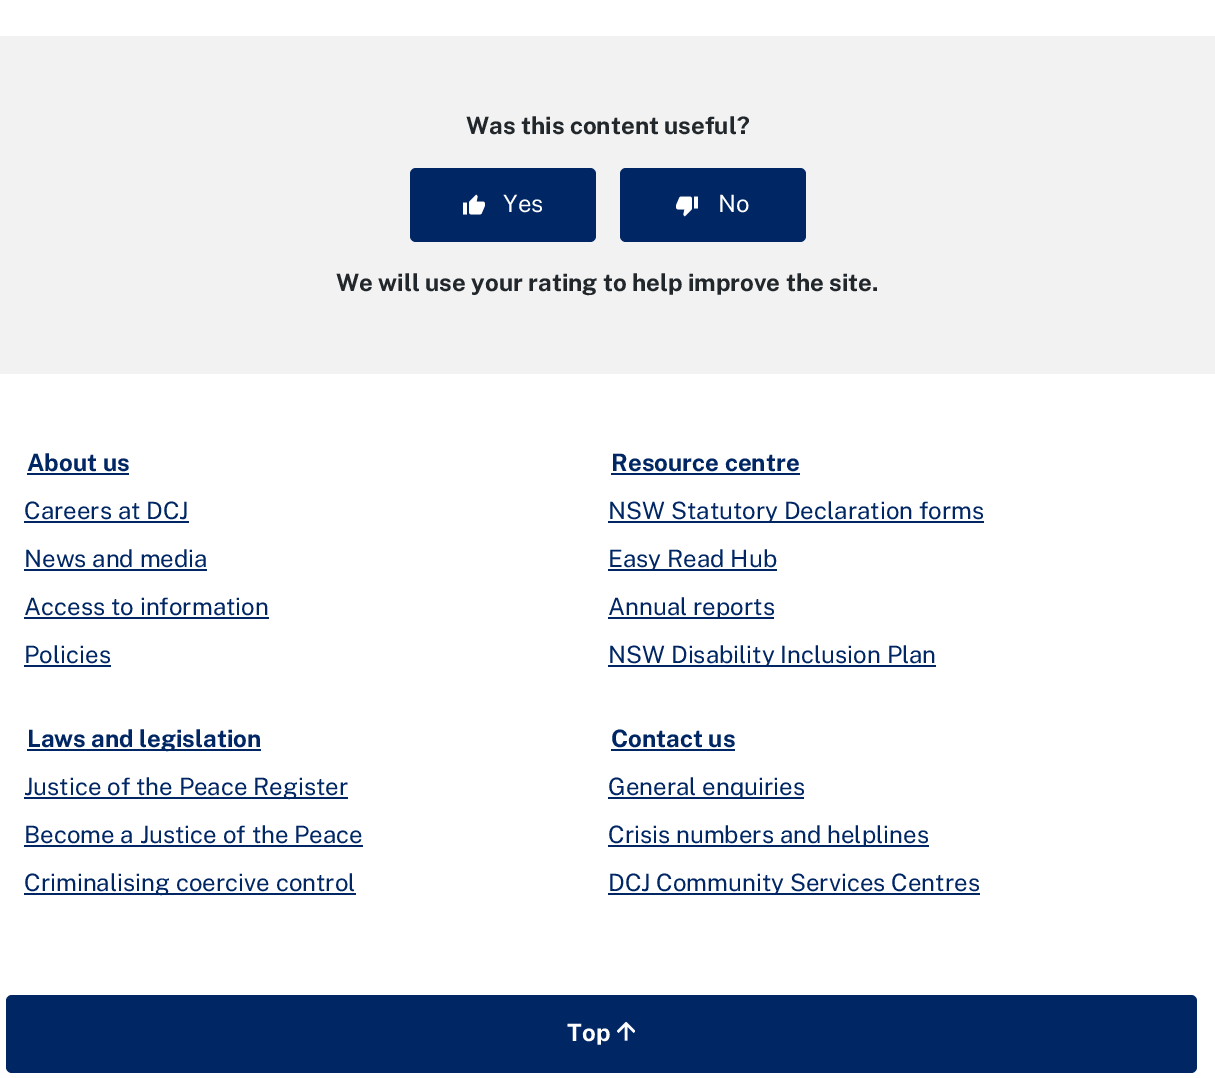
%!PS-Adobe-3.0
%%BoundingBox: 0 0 1215 1078
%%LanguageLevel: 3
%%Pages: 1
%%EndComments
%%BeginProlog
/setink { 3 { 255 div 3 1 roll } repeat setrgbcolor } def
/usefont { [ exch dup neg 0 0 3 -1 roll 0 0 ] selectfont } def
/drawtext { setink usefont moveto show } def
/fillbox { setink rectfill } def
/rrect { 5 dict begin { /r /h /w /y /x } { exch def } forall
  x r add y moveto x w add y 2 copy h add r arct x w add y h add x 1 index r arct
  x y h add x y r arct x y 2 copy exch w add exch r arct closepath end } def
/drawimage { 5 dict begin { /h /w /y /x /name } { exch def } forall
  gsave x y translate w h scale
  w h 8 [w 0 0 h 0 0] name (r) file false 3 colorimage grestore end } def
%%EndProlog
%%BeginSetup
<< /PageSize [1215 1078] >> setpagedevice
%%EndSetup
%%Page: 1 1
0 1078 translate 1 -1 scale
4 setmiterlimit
0 0 1215 1078 255 255 255 fillbox
0 36 1215 338 242 242 242 fillbox
(Was this content useful?) 466 134 /PublicSans-Bold 24 34 39 43 drawtext
0 38 100 setink
410 168 186 74 6 rrect fill
(assets/img1.rgb) 463 194 22 21 drawimage
(Yes) 503 212 /PublicSans-Regular 24 255 255 255 drawtext
0 38 100 setink
620 168 186 74 6 rrect fill
(assets/img2.rgb) 676 196 22 21 drawimage
(No) 718 212 /PublicSans-Regular 24 255 255 255 drawtext
(We will use your rating to help improve the site.) 336 291 /PublicSans-Bold 24 34 39 43 drawtext
(About us) 27 471 /PublicSans-Bold 24 0 38 100 drawtext
27 473 102 2 0 38 100 fillbox
(Careers at DCJ) 24 519 /PublicSans-Regular 24 0 38 100 drawtext
24 521 165 2 0 38 100 fillbox
(News and media) 24 567 /PublicSans-Regular 24 0 38 100 drawtext
24 569 183 2 0 38 100 fillbox
(Access to information) 24 615 /PublicSans-Regular 24 0 38 100 drawtext
24 617 245 2 0 38 100 fillbox
(Policies) 24 663 /PublicSans-Regular 24 0 38 100 drawtext
24 665 87 2 0 38 100 fillbox
(Resource centre) 611 471 /PublicSans-Bold 24 0 38 100 drawtext
611 473 189 2 0 38 100 fillbox
608 521 376 2 0 38 100 fillbox
(NSW Statutory Declaration forms) 608 519 /PublicSans-Regular 24 0 38 100 drawtext
608 569 169 2 0 38 100 fillbox
(Easy Read Hub) 608 567 /PublicSans-Regular 24 0 38 100 drawtext
608 617 166 2 0 38 100 fillbox
(Annual reports) 608 615 /PublicSans-Regular 24 0 38 100 drawtext
608 665 328 2 0 38 100 fillbox
(NSW Disability Inclusion Plan) 608 663 /PublicSans-Regular 24 0 38 100 drawtext
27 749 234 2 0 38 100 fillbox
(Laws and legislation) 27 747 /PublicSans-Bold 24 0 38 100 drawtext
24 797 324 2 0 38 100 fillbox
(Justice of the Peace Register) 24 795 /PublicSans-Regular 24 0 38 100 drawtext
(Become a Justice of the Peace) 24 843 /PublicSans-Regular 24 0 38 100 drawtext
24 845 339 2 0 38 100 fillbox
24 893 332 2 0 38 100 fillbox
(Criminalising coercive control) 24 891 /PublicSans-Regular 24 0 38 100 drawtext
(Contact us) 611 747 /PublicSans-Bold 24 0 38 100 drawtext
611 749 124 2 0 38 100 fillbox
608 797 196 2 0 38 100 fillbox
(General enquiries) 608 795 /PublicSans-Regular 24 0 38 100 drawtext
608 845 321 2 0 38 100 fillbox
(Crisis numbers and helplines) 608 843 /PublicSans-Regular 24 0 38 100 drawtext
608 893 372 2 0 38 100 fillbox
(DCJ Community Services Centres) 608 891 /PublicSans-Regular 24 0 38 100 drawtext
6 995 1191 78 6 rrect fill
(Top) 567 1041 /PublicSans-Bold 24 255 255 255 drawtext
(assets/img3.rgb) 617 1022 18 19 drawimage
showpage
%%EOF
